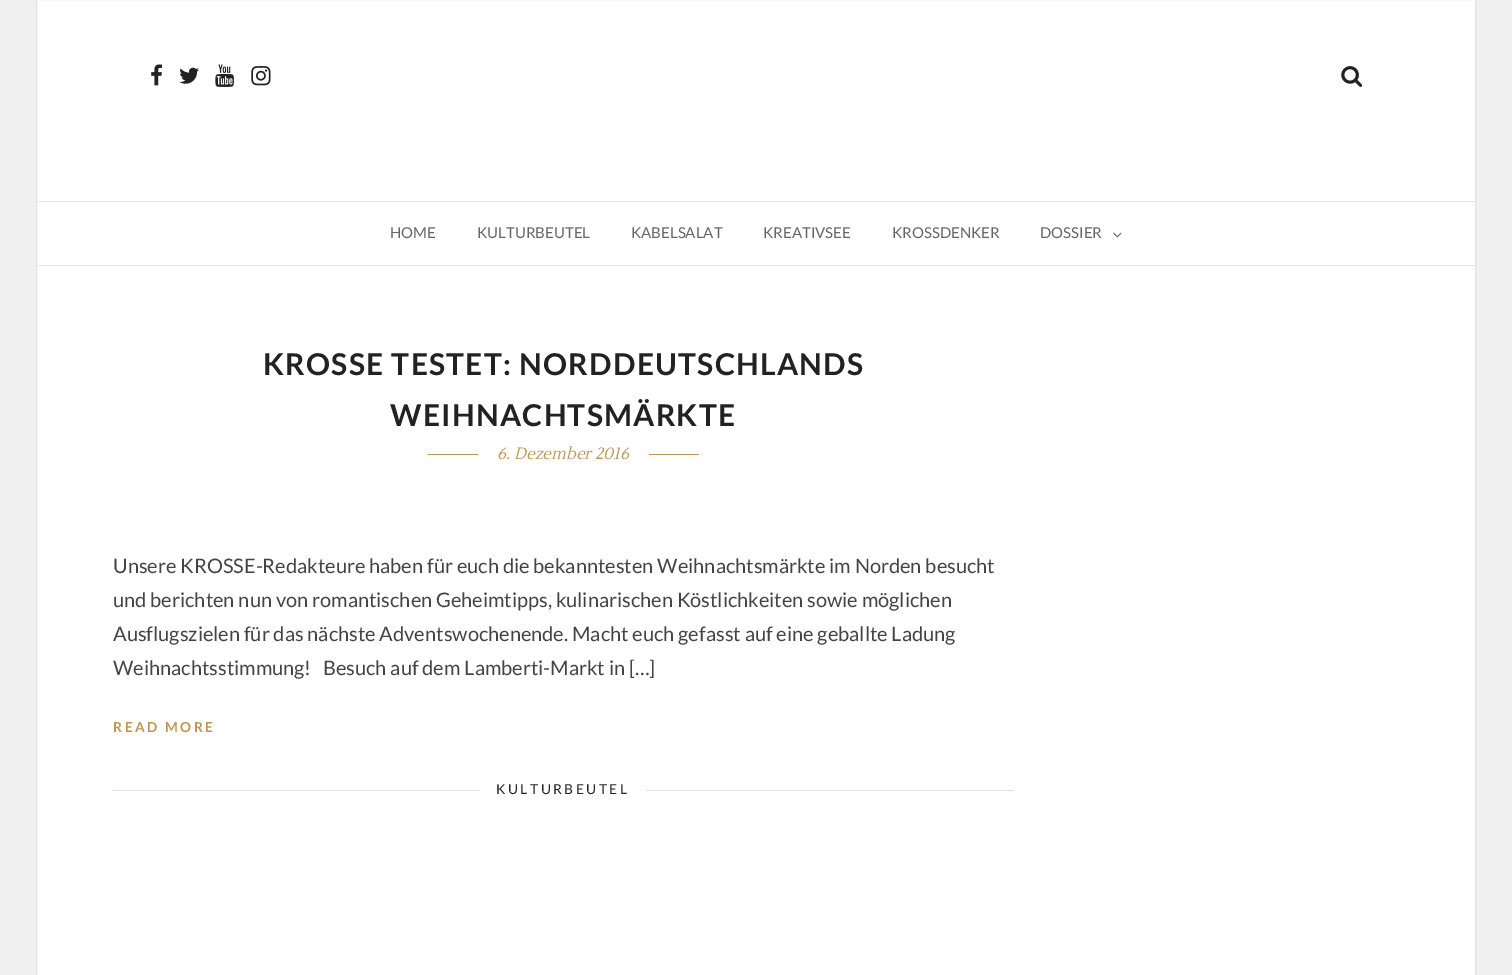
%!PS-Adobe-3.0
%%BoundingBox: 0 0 1512 975
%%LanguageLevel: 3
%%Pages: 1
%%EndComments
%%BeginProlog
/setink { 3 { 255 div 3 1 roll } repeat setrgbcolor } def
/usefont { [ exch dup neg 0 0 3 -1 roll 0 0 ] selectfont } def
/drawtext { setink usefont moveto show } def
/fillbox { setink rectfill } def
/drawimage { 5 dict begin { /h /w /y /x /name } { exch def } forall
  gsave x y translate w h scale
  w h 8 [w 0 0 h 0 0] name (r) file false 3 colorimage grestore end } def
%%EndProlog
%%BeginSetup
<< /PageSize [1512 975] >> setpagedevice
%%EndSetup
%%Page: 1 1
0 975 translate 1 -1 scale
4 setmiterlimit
0 0 1512 975 240 240 240 fillbox
255 255 255 setink
36.5 -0.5 moveto 1475.5 -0.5 lineto 1475.5 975.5 lineto 36.5 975.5 lineto closepath gsave fill grestore
225 225 225 setink
stroke
38 265 1437 1 225 225 225 fillbox
38 201 1437 1 225 225 225 fillbox
(assets/img1.rgb) 151 64 12 22 drawimage
(assets/img2.rgb) 179 67 20 17 drawimage
(assets/img3.rgb) 215 64 19 23 drawimage
(assets/img4.rgb) 251 66 20 20 drawimage
(assets/img5.rgb) 1341 66 22 21 drawimage
(HOME) 390 238 /Lato-Regular 15 102 102 102 drawtext
(KULTURBEUTEL) 477 238 /Lato-Regular 15 102 102 102 drawtext
(KABELSALAT) 631 238 /Lato-Regular 15 102 102 102 drawtext
(KREATIVSEE) 763 238 /Lato-Regular 15 102 102 102 drawtext
(KROSSDENKER) 892 238 /Lato-Regular 15 102 102 102 drawtext
(DOSSIER) 1040 238 /Lato-Regular 15 102 102 102 drawtext
(assets/img6.rgb) 1113 232 9 6 drawimage
/Lato-Bold 30 usefont
34 34 34 setink
263 375 moveto 1.25 0 (KROSSE TESTET: NORDDEUTSCHLANDS) ashow
390 426 moveto 1.25 0 (WEIHNACHTSMÄRKTE) ashow
428 454 271 1 190 150 86 fillbox
478 454 171 1 255 255 255 fillbox
(6. Dezember 2016) 497 459 /Lustria-Italic 16.25 190 150 86 drawtext
(Unsere KROSSE-Redakteure haben für euch die bekanntesten Weihnachtsmärkte im Norden besucht) 113 573 /Lato-Regular 20 68 68 68 drawtext
(und berichten nun von romantischen Geheimtipps, kulinarischen Köstlichkeiten sowie möglichen) 113 607 /Lato-Regular 20 68 68 68 drawtext
(Ausflugszielen für das nächste Adventswochenende. Macht euch gefasst auf eine geballte Ladung) 113 641 /Lato-Regular 20 68 68 68 drawtext
(Weihnachtsstimmung!   Besuch auf dem Lamberti-Markt in […]) 113 675 /Lato-Regular 20 68 68 68 drawtext
/Lato-Bold 13.75 usefont
190 150 86 setink
113 732 moveto 2.5 0 (READ MORE) ashow
113 790 901 1 225 225 225 fillbox
480 790 166 1 255 255 255 fillbox
/Lato-Regular 13.75 usefont
34 34 34 setink
496 794 moveto 2.5 0 (KULTURBEUTEL) ashow
showpage
%%EOF
